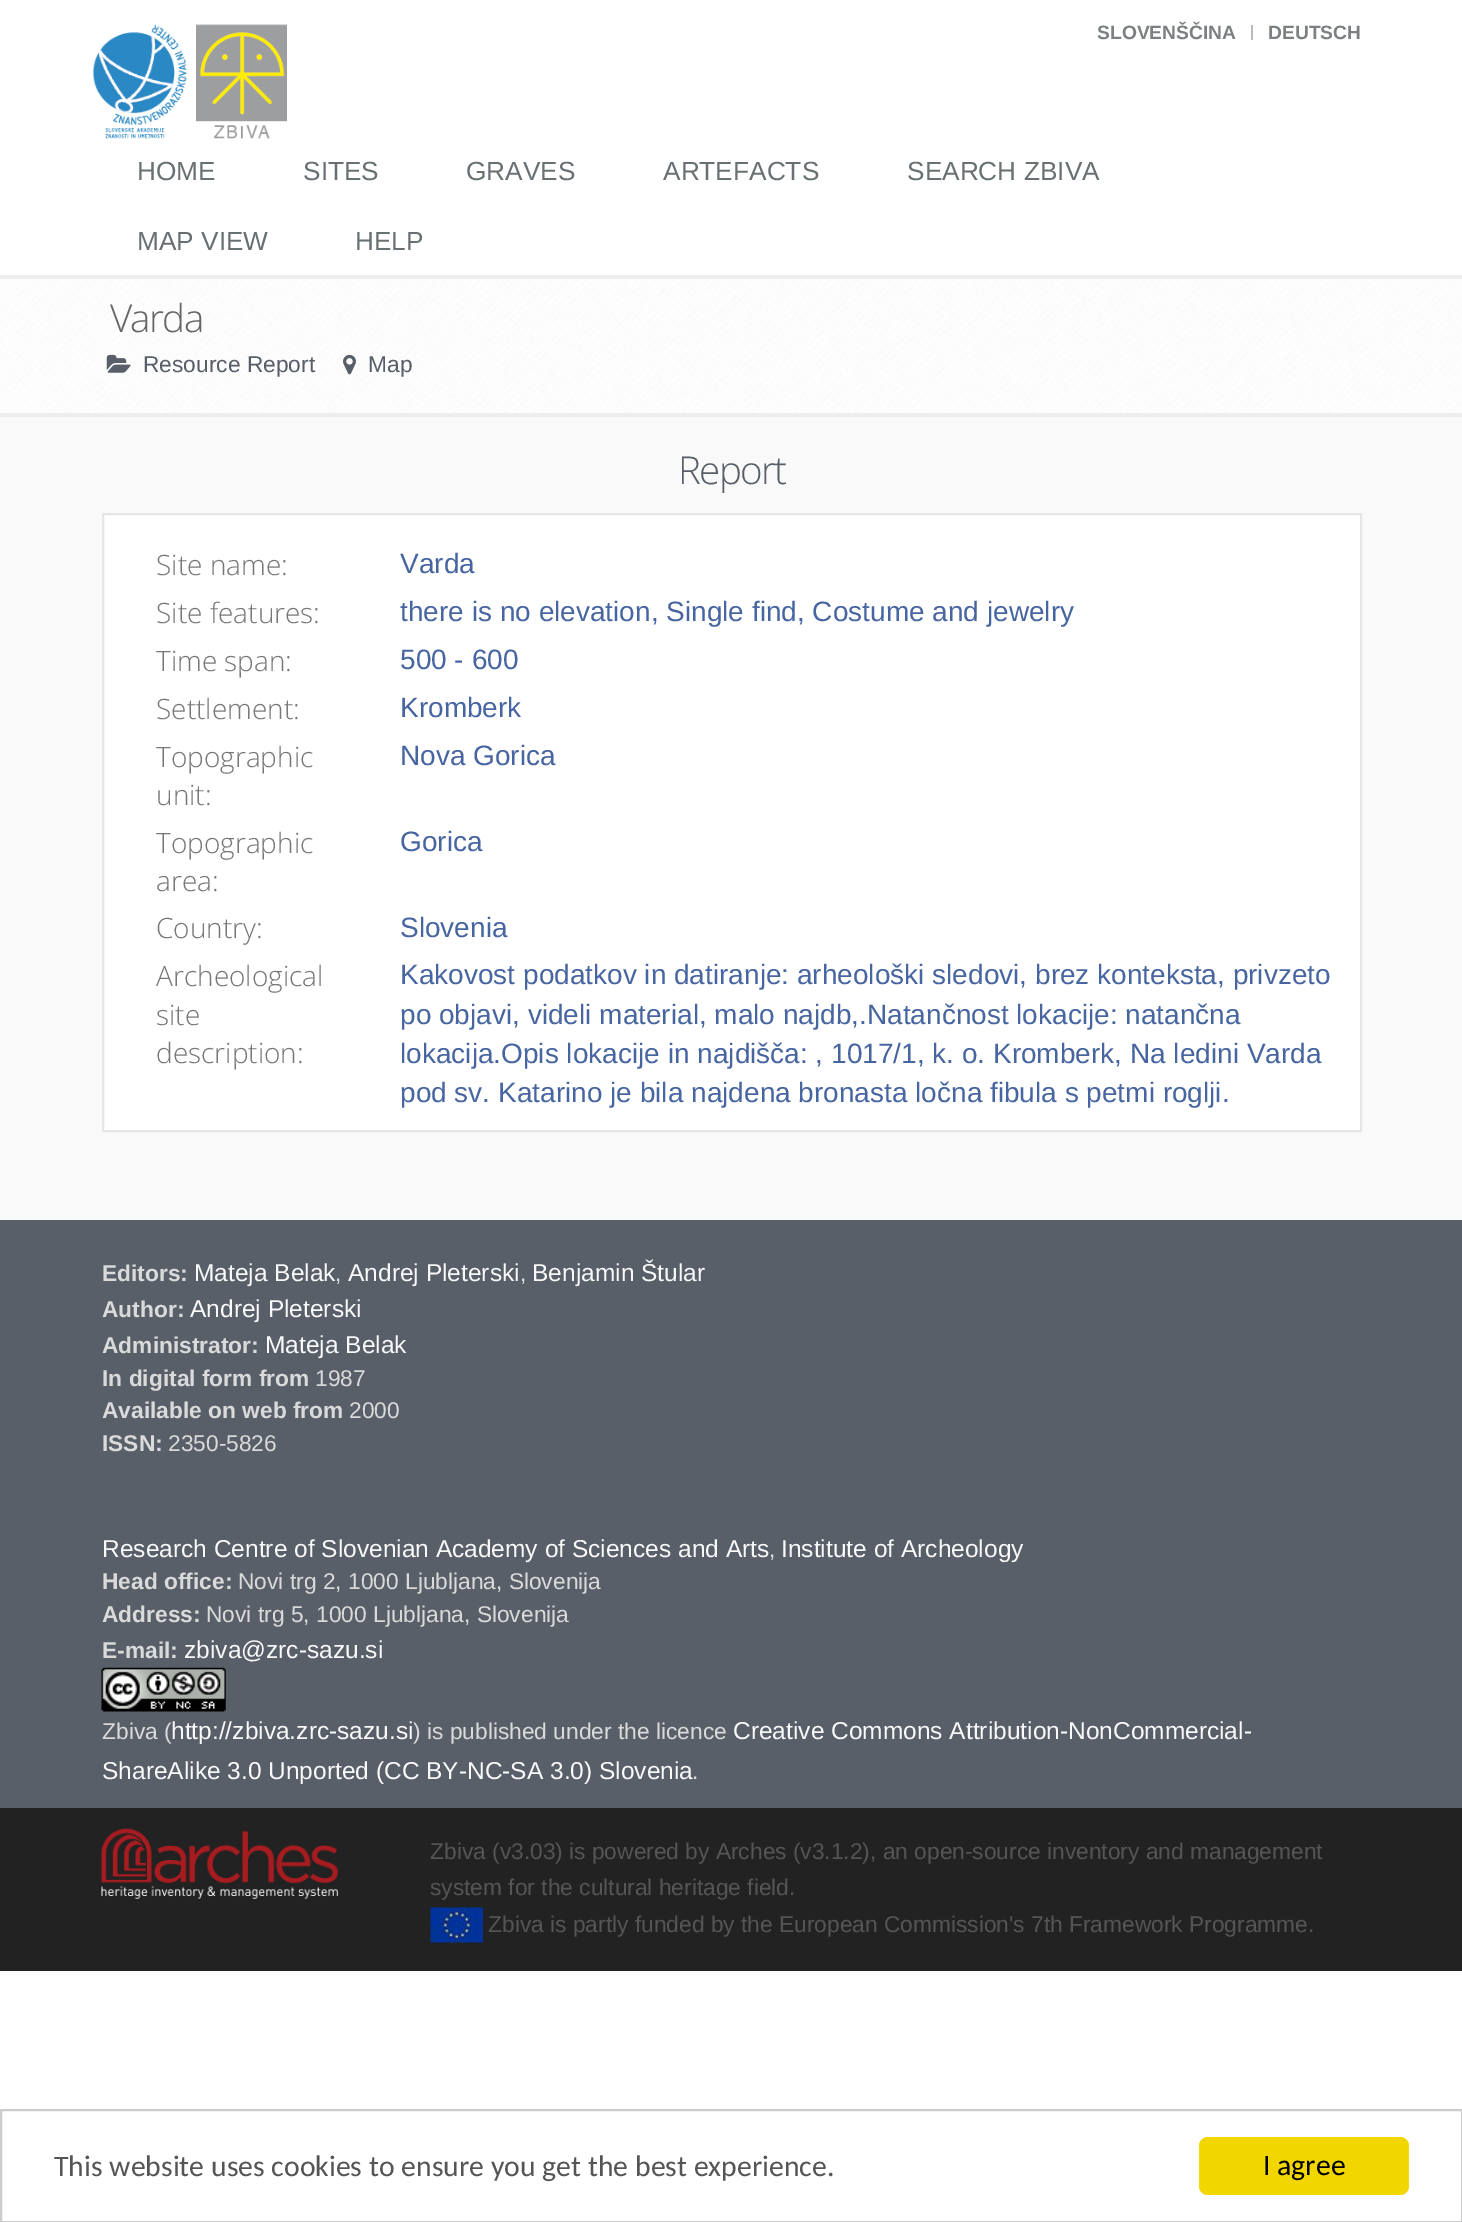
%!PS-Adobe-3.0
%%BoundingBox: 0 0 1462 2222
%%LanguageLevel: 3
%%Pages: 1
%%EndComments
%%BeginProlog
/setink { 3 { 255 div 3 1 roll } repeat setrgbcolor } def
/usefont { [ exch dup neg 0 0 3 -1 roll 0 0 ] selectfont } def
/drawtext { setink usefont moveto show } def
/fillbox { setink rectfill } def
/rrect { 5 dict begin { /r /h /w /y /x } { exch def } forall
  x r add y moveto x w add y 2 copy h add r arct x w add y h add x 1 index r arct
  x y h add x y r arct x y 2 copy exch w add exch r arct closepath end } def
/drawimage { 5 dict begin { /h /w /y /x /name } { exch def } forall
  gsave x y translate w h scale
  w h 8 [w 0 0 h 0 0] name (r) file false 3 colorimage grestore end } def
%%EndProlog
%%BeginSetup
<< /PageSize [1462 2222] >> setpagedevice
%%EndSetup
%%Page: 1 1
0 2222 translate 1 -1 scale
4 setmiterlimit
0 0 1462 2222 255 255 255 fillbox
0 275 1462 4 238 238 238 fillbox
(SLOVENŠČINA) 1097 39 /LiberationSans-Bold 19.25 124 128 130 drawtext
1251 25 2 15 187 187 187 fillbox
(DEUTSCH) 1268 39 /LiberationSans-Bold 19.25 124 128 130 drawtext
(assets/img1.rgb) 92 24 95 115 drawimage
(assets/img2.rgb) 196 24 91 115 drawimage
(HOME) 137 180 /LiberationSans-Regular 26.25 104 112 116 drawtext
(SITES) 303 180 /LiberationSans-Regular 26.25 104 112 116 drawtext
(GRAVES) 466 180 /LiberationSans-Regular 26.25 104 112 116 drawtext
(ARTEFACTS) 663 180 /LiberationSans-Regular 26.25 104 112 116 drawtext
(SEARCH ZBIVA) 907 180 /LiberationSans-Regular 26.25 104 112 116 drawtext
(MAP VIEW) 137 250 /LiberationSans-Regular 26.25 104 112 116 drawtext
(HELP) 355 250 /LiberationSans-Regular 26.25 104 112 116 drawtext
(assets/img3.rgb) 0 279 1462 134 drawimage
0 413 1462 4 238 238 238 fillbox
/OpenSans-Light 38.5 usefont
102 102 102 setink
110 332 moveto -1.75 0 (Varda) ashow
(assets/img4.rgb) 106 354 25 19 drawimage
(Resource Report) 143 372 /LiberationSans-Regular 22.75 88 95 105 drawtext
(assets/img5.rgb) 343 354 13 21 drawimage
(Map) 368 372 /LiberationSans-Regular 22.75 88 95 105 drawtext
0 417 1462 803 249 249 249 fillbox
/OpenSans-Light 38.5 usefont
88 95 105 setink
678 484 moveto -1.75 0 (Report) ashow
255 255 255 setink
103 514 moveto 1361 514 lineto 1361 1131 lineto 103 1131 lineto closepath gsave fill grestore
230 230 230 setink
2 setlinewidth
stroke
(Site name:) 156 575 /OpenSans-Light 28 119 119 119 drawtext
(Varda) 400 573 /LiberationSans-Regular 28 71 101 160 drawtext
(Site features:) 156 623 /OpenSans-Light 28 119 119 119 drawtext
(there is no elevation, Single find, Costume and jewelry) 400 621 /LiberationSans-Regular 28 71 101 160 drawtext
(Time span:) 156 671 /OpenSans-Light 28 119 119 119 drawtext
(500 - 600) 400 669 /LiberationSans-Regular 28 71 101 160 drawtext
(Settlement:) 156 719 /OpenSans-Light 28 119 119 119 drawtext
(Kromberk) 400 717 /LiberationSans-Regular 28 71 101 160 drawtext
(Topographic) 156 767 /OpenSans-Light 28 119 119 119 drawtext
(unit:) 156 805 /OpenSans-Light 28 119 119 119 drawtext
(Nova Gorica) 400 765 /LiberationSans-Regular 28 71 101 160 drawtext
(Topographic) 156 853 /OpenSans-Light 28 119 119 119 drawtext
(area:) 156 891 /OpenSans-Light 28 119 119 119 drawtext
(Gorica) 400 851 /LiberationSans-Regular 28 71 101 160 drawtext
(Country:) 156 938 /OpenSans-Light 28 119 119 119 drawtext
(Slovenia) 400 937 /LiberationSans-Regular 28 71 101 160 drawtext
(Archeological) 156 986 /OpenSans-Light 28 119 119 119 drawtext
(site) 156 1025 /OpenSans-Light 28 119 119 119 drawtext
(description:) 156 1063 /OpenSans-Light 28 119 119 119 drawtext
(Kakovost podatkov in datiranje: arheološki sledovi, brez konteksta, privzeto) 400 984 /LiberationSans-Regular 28 71 101 160 drawtext
(po objavi, videli material, malo najdb,.Natančnost lokacije: natančna) 400 1024 /LiberationSans-Regular 28 71 101 160 drawtext
(lokacija.Opis lokacije in najdišča: , 1017/1, k. o. Kromberk, Na ledini Varda) 400 1063 /LiberationSans-Regular 28 71 101 160 drawtext
(pod sv. Katarino je bila najdena bronasta ločna fibula s petmi roglji.) 400 1102 /LiberationSans-Regular 28 71 101 160 drawtext
0 1220 1462 588 88 95 105 fillbox
(Editors:) 102 1281 /LiberationSans-Bold 22.75 218 218 218 drawtext
(Mateja Belak) 194 1281 /LiberationSans-Regular 24.5 249 249 249 drawtext
(,) 335 1281 /LiberationSans-Regular 22.75 218 218 218 drawtext
(Andrej Pleterski) 348 1281 /LiberationSans-Regular 24.5 249 249 249 drawtext
(,) 520 1281 /LiberationSans-Regular 22.75 218 218 218 drawtext
(Benjamin Štular) 532 1281 /LiberationSans-Regular 24.5 249 249 249 drawtext
(Author:) 102 1317 /LiberationSans-Bold 22.75 218 218 218 drawtext
(Andrej Pleterski) 190 1317 /LiberationSans-Regular 24.5 249 249 249 drawtext
(Administrator:) 102 1353 /LiberationSans-Bold 22.75 218 218 218 drawtext
(Mateja Belak) 265 1353 /LiberationSans-Regular 24.5 249 249 249 drawtext
(In digital form from) 102 1386 /LiberationSans-Bold 22.75 218 218 218 drawtext
(1987) 315 1386 /LiberationSans-Regular 22.75 218 218 218 drawtext
(Available on web from) 102 1418 /LiberationSans-Bold 22.75 218 218 218 drawtext
(2000) 349 1418 /LiberationSans-Regular 22.75 218 218 218 drawtext
(ISSN:) 102 1451 /LiberationSans-Bold 22.75 218 218 218 drawtext
(2350-5826) 168 1451 /LiberationSans-Regular 22.75 218 218 218 drawtext
(Research Centre of Slovenian Academy of Sciences and Arts) 102 1557 /LiberationSans-Regular 24.5 249 249 249 drawtext
(,) 769 1557 /LiberationSans-Regular 22.75 218 218 218 drawtext
(Institute of Archeology) 781 1557 /LiberationSans-Regular 24.5 249 249 249 drawtext
(Head office:) 102 1589 /LiberationSans-Bold 22.75 218 218 218 drawtext
(Novi trg 2, 1000 Ljubljana, Slovenija) 238 1589 /LiberationSans-Regular 22.75 218 218 218 drawtext
(Address:) 102 1622 /LiberationSans-Bold 22.75 218 218 218 drawtext
(Novi trg 5, 1000 Ljubljana, Slovenija) 206 1622 /LiberationSans-Regular 22.75 218 218 218 drawtext
(E-mail:) 102 1658 /LiberationSans-Bold 22.75 218 218 218 drawtext
(zbiva@zrc-sazu.si) 184 1658 /LiberationSans-Regular 24.5 249 249 249 drawtext
(assets/img6.rgb) 101 1667 125 45 drawimage
(Zbiva \() 102 1739 /LiberationSans-Regular 22.75 218 218 218 drawtext
(http://zbiva.zrc-sazu.si) 171 1739 /LiberationSans-Regular 24.5 249 249 249 drawtext
(\) is published under the licence) 413 1739 /LiberationSans-Regular 22.75 218 218 218 drawtext
(Creative Commons Attribution-NonCommercial-) 733 1739 /LiberationSans-Regular 24.5 249 249 249 drawtext
(ShareAlike 3.0 Unported \(CC BY-NC-SA 3.0\) Slovenia) 102 1779 /LiberationSans-Regular 24.5 249 249 249 drawtext
(.) 692 1779 /LiberationSans-Regular 22.75 218 218 218 drawtext
0 1808 1462 163 34 34 34 fillbox
(assets/img7.rgb) 101 1828 237 71 drawimage
(Zbiva \(v3.03\) is powered by Arches \(v3.1.2\), an open-source inventory and management) 430 1859 /LiberationSans-Regular 22.75 85 85 85 drawtext
(system for the cultural heritage field.) 430 1895 /LiberationSans-Regular 22.75 85 85 85 drawtext
(assets/img8.rgb) 430 1907 53 36 drawimage
(Zbiva is partly funded by the European Commission's 7th Framework Programme.) 488 1932 /LiberationSans-Regular 22.75 85 85 85 drawtext
204 204 204 setink
1 2110 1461 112 rectstroke
(This website uses cookies to ensure you get the best experience.) 54 2176 /Carlito-Regular 29.75 85 85 85 drawtext
241 214 0 setink
1199 2137 210 58 9 rrect fill
(I agree) 1263 2175 /Carlito-Regular 29.75 0 0 0 drawtext
showpage
%%EOF
